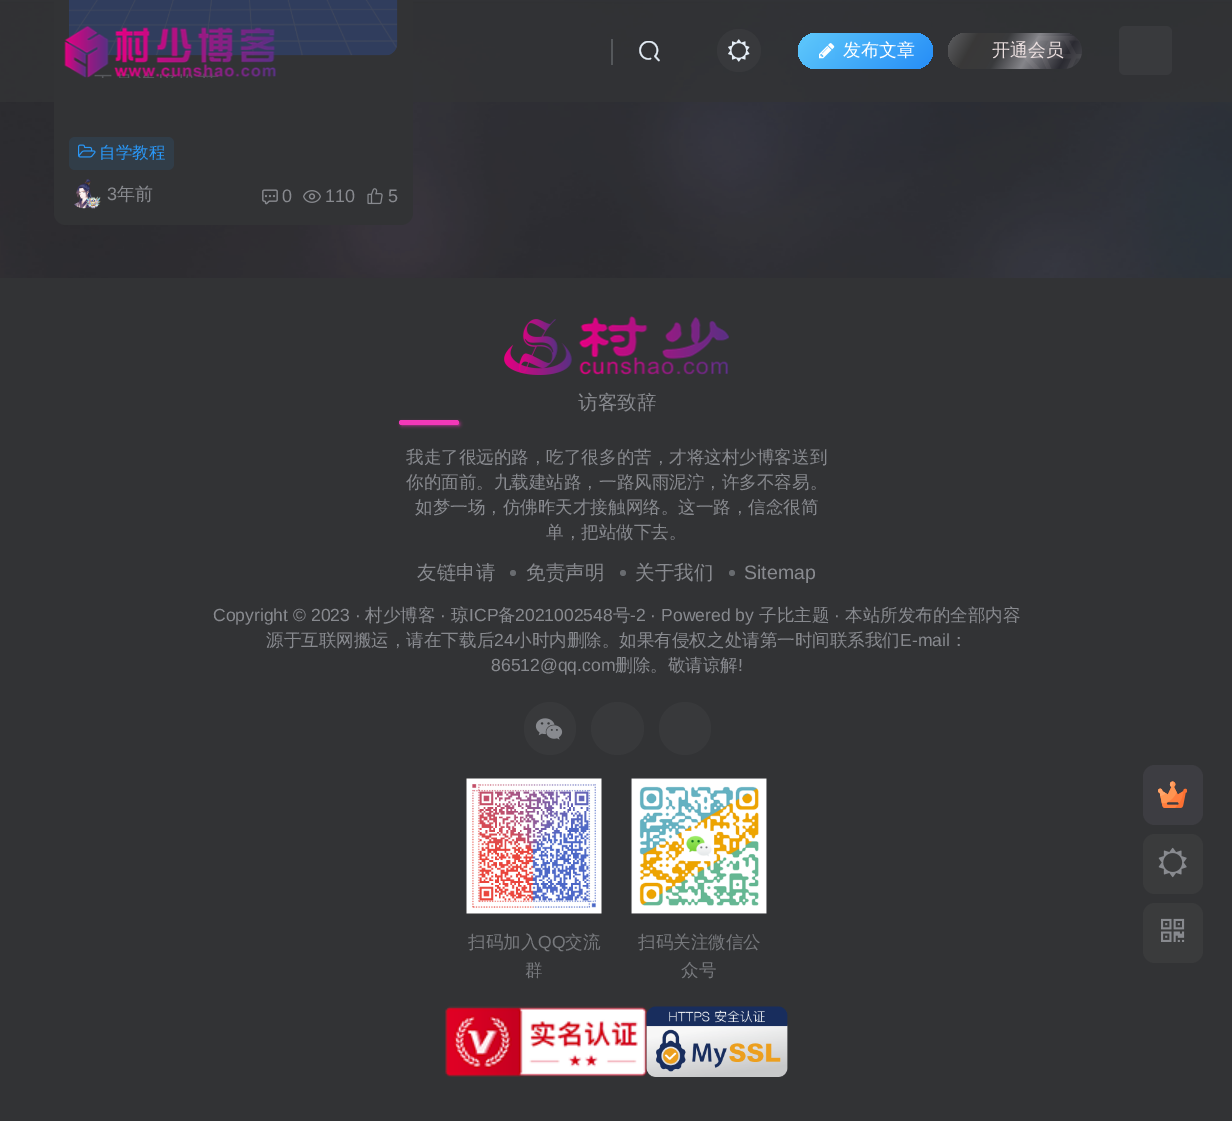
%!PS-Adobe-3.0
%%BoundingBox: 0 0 1232 1121
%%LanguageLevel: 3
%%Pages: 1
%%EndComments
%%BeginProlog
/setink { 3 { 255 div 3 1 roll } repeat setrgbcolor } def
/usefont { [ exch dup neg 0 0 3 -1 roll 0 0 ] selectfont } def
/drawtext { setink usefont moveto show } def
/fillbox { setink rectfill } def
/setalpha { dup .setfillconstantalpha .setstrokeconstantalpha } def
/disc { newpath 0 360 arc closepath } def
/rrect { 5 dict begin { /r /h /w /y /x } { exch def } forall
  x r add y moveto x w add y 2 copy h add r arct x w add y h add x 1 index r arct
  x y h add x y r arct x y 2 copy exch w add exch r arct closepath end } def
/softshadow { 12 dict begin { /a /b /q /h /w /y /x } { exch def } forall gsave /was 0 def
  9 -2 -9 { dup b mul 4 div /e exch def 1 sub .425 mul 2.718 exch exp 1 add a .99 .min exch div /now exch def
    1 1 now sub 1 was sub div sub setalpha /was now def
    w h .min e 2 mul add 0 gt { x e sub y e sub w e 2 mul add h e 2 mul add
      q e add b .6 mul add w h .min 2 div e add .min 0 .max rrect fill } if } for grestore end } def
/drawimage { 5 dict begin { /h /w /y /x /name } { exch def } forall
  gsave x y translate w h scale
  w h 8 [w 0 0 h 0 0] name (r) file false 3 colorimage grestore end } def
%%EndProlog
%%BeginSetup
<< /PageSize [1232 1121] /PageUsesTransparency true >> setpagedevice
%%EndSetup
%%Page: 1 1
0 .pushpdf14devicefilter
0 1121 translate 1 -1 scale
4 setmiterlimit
0 0 1232 1121 41 42 45 fillbox
(assets/img1.rgb) 0 0 1232 278 drawimage
50 51 53 setink
54 -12 359 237 12 rrect fill
(assets/img7.rgb) 69 0 329 56 drawimage
0.8 setalpha
0 0 1232 102 50 51 53 fillbox
1 setalpha
(assets/img2.rgb) 64 26 212 52 drawimage
611 39 2 26 85 88 91 fillbox
(assets/img3.rgb) 639 41 21 21 drawimage
56 57 60 setink
717 29 44 43 21.5 rrect fill
(assets/img4.rgb) 728 39 22 23 drawimage
gsave 798 33 135 36 18 rrect clip newpath
<< /ShadingType 2 /ColorSpace /DeviceRGB /Coords [823 8 908 94] /Extend [true true] /Function << /FunctionType 3 /Domain [0 1] /Functions [<< /FunctionType 2 /Domain [0 1] /C0 [0.349 0.765 0.984] /C1 [0.349 0.765 0.984] /N 1 >> << /FunctionType 2 /Domain [0 1] /C0 [0.349 0.765 0.984] /C1 [0.149 0.553 0.969] /N 1 >>] /Bounds [0.1] /Encode [0 1 0 1] >> >> shfill grestore
(assets/img5.rgb) 819 43 16 16 drawimage
(发布文章) 843 56 /WenQuanYiZenHei-Medium 18 255 255 255 drawtext
gsave 948 33 134 36 18 rrect clip newpath
<< /ShadingType 2 /ColorSpace /DeviceRGB /Coords [1073 84 957 18] /Extend [true true] /Function << /FunctionType 3 /Domain [0 1] /Functions [<< /FunctionType 2 /Domain [0 1] /C0 [0.298 0.302 0.318] /C1 [0.165 0.165 0.192] /N 1 >> << /FunctionType 2 /Domain [0 1] /C0 [0.165 0.165 0.192] /C1 [0.522 0.522 0.541] /N 1 >> << /FunctionType 2 /Domain [0 1] /C0 [0.522 0.522 0.541] /C1 [0.224 0.227 0.235] /N 1 >> << /FunctionType 2 /Domain [0 1] /C0 [0.224 0.227 0.235] /C1 [0.224 0.22 0.22] /N 1 >> << /FunctionType 2 /Domain [0 1] /C0 [0.224 0.22 0.22] /C1 [0.369 0.373 0.384] /N 1 >>] /Bounds [0.15 0.4 0.6 0.8] /Encode [0 1 0 1 0 1 0 1 0 1] >> >> shfill grestore
(开通会员) 992 56 /WenQuanYiZenHei-Medium 18 236 224 224 drawtext
(assets/img6.rgb) 1023 36 59 33 drawimage
57 58 61 setink
1119 26 53 49 6 rrect fill
49 61 72 setink
69 137 105 33 6 rrect fill
(assets/img8.rgb) 78 144 18 14 drawimage
(自学教程) 99 158 /WenQuanYiZenHei-Medium 16.5 41 151 247 drawtext
(assets/img9.rgb) 74 179 21 30 drawimage
(assets/img10.rgb) 86 196 15 13 drawimage
(3) 107 200 /LiberationSans-Regular 18 136 138 143 drawtext
(年前) 117 200 /WenQuanYiZenHei-Medium 18 136 138 143 drawtext
(assets/img11.rgb) 262 189 16 16 drawimage
(0) 282 202 /LiberationSans-Regular 18 136 138 143 drawtext
(assets/img12.rgb) 303 190 18 13 drawimage
(110) 325 202 /LiberationSans-Regular 18 136 138 143 drawtext
(assets/img13.rgb) 367 188 16 17 drawimage
(5) 388 202 /LiberationSans-Regular 18 136 138 143 drawtext
0 278 1232 843 50 51 53 fillbox
(assets/img14.rgb) 504 316 225 59 drawimage
(访客致辞) 578 409 /WenQuanYiZenHei-Medium 19.5 136 138 143 drawtext
244 56 185 setink
402 423 57 2 1 2 1 softshadow
399 420 60 5 2.5 rrect fill
(我走了很远的路，吃了很多的苦，才将这村少博客送到) 406 463 /WenQuanYiZenHei-Medium 17.55 136 138 143 drawtext
(你的面前。九载建站路，一路风雨泥泞，许多不容易。) 406 488 /WenQuanYiZenHei-Medium 17.55 136 138 143 drawtext
(如梦一场，仿佛昨天才接触网络。这一路，信念很简) 415 513 /WenQuanYiZenHei-Medium 17.55 136 138 143 drawtext
(单，把站做下去。) 546 538 /WenQuanYiZenHei-Medium 17.55 136 138 143 drawtext
(友链申请) 417 579 /WenQuanYiZenHei-Medium 19.5 136 138 143 drawtext
104 107 111 setink
513 573 3 disc fill
(免责声明) 526 579 /WenQuanYiZenHei-Medium 19.5 136 138 143 drawtext
104 107 111 setink
623 573 3 disc fill
(关于我们) 635 579 /WenQuanYiZenHei-Medium 19.5 136 138 143 drawtext
104 107 111 setink
732 573 3 disc fill
(Sitemap) 744 579 /LiberationSans-Regular 19.5 136 138 143 drawtext
(Copyright © 2023 ·) 213 621 /LiberationSans-Regular 17.55 136 138 143 drawtext
(村少博客) 365 621 /WenQuanYiZenHei-Medium 17.55 136 138 143 drawtext
(·) 440 621 /LiberationSans-Regular 17.55 136 138 143 drawtext
(琼) 451 621 /WenQuanYiZenHei-Medium 17.55 136 138 143 drawtext
(ICP) 469 621 /LiberationSans-Regular 17.55 136 138 143 drawtext
(备) 498 621 /WenQuanYiZenHei-Medium 17.55 136 138 143 drawtext
(2021002548) 515 621 /LiberationSans-Regular 17.55 136 138 143 drawtext
(号) 613 621 /WenQuanYiZenHei-Medium 17.55 136 138 143 drawtext
(-2 · Powered by) 630 621 /LiberationSans-Regular 17.55 136 138 143 drawtext
(子比主题) 759 621 /WenQuanYiZenHei-Medium 17.55 136 138 143 drawtext
(·) 834 621 /LiberationSans-Regular 17.55 136 138 143 drawtext
(本站所发布的全部内容) 845 621 /WenQuanYiZenHei-Medium 17.55 136 138 143 drawtext
(源于互联网搬运，请在下载后) 266 646 /WenQuanYiZenHei-Medium 17.55 136 138 143 drawtext
(24) 494 646 /LiberationSans-Regular 17.55 136 138 143 drawtext
(小时内删除。如果有侵权之处请第一时间联系我们) 514 646 /WenQuanYiZenHei-Medium 17.55 136 138 143 drawtext
(E-mail) 900 646 /LiberationSans-Regular 17.55 136 138 143 drawtext
(：) 950 646 /WenQuanYiZenHei-Medium 17.55 136 138 143 drawtext
(86512@qq.com) 491 671 /LiberationSans-Regular 17.55 136 138 143 drawtext
(删除。敬请谅解) 615 671 /WenQuanYiZenHei-Medium 17.55 136 138 143 drawtext
(!) 738 671 /LiberationSans-Regular 17.55 136 138 143 drawtext
56 57 59 setink
524 702 52 53 26 rrect fill
(assets/img15.rgb) 535 718 28 22 drawimage
617.5 728.5 26.5 disc fill
659 702 52 53 26 rrect fill
(assets/img16.rgb) 466 778 136 136 drawimage
(扫码加入) 468 948 /WenQuanYiZenHei-Medium 17.55 119 121 125 drawtext
(QQ) 538 948 /LiberationSans-Regular 17.55 119 121 125 drawtext
(交流) 565 948 /WenQuanYiZenHei-Medium 17.55 119 121 125 drawtext
(群) 525 976 /WenQuanYiZenHei-Medium 17.55 119 121 125 drawtext
(assets/img17.rgb) 631 778 136 136 drawimage
(扫码关注微信公) 638 948 /WenQuanYiZenHei-Medium 17.55 119 121 125 drawtext
(众号) 681 976 /WenQuanYiZenHei-Medium 17.55 119 121 125 drawtext
(assets/img18.rgb) 445 1006 202 71 drawimage
(assets/img19.rgb) 646 1006 142 71 drawimage
61 61 66 setink
1143 765 60 60 12 rrect fill
(assets/img20.rgb) 1158 781 29 27 drawimage
58 59 60 setink
1143 834 60 60 12 rrect fill
(assets/img21.rgb) 1158 847 29 31 drawimage
1143 903 60 60 12 rrect fill
(assets/img22.rgb) 1161 918 24 24 drawimage
.poppdf14devicefilter showpage
%%EOF
